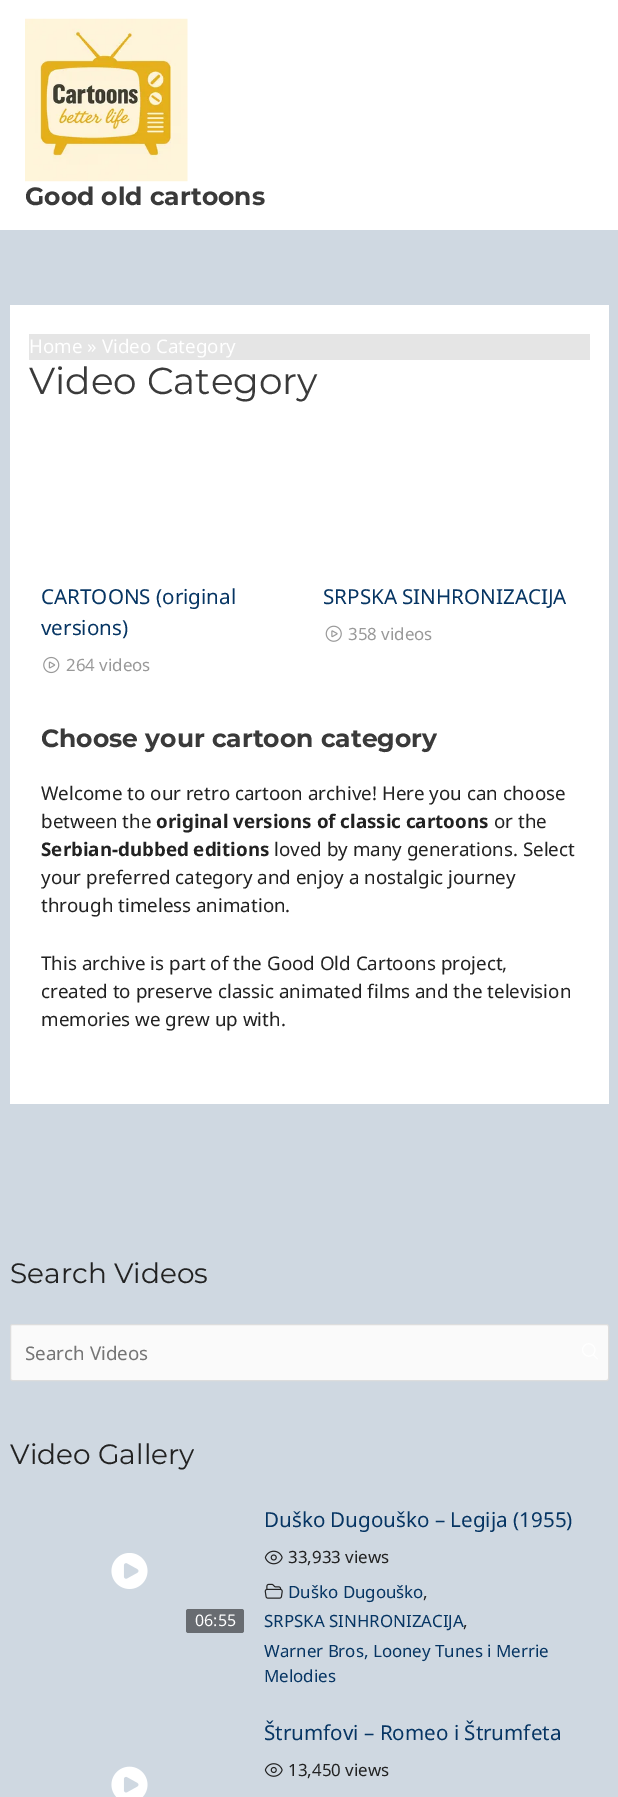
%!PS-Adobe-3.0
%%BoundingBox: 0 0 618 1797
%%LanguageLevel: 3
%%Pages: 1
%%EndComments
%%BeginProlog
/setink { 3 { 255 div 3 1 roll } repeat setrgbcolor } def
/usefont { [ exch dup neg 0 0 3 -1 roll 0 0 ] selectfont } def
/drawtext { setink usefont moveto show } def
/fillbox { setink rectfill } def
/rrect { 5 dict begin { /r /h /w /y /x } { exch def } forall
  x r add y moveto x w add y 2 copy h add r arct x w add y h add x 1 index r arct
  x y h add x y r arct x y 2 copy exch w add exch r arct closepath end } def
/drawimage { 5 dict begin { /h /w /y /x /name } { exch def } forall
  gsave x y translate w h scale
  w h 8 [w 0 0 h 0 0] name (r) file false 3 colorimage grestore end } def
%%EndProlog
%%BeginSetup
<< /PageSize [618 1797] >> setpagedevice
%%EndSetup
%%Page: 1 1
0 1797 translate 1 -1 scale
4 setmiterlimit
0 0 618 1797 207 216 225 fillbox
0 0 618 230 255 255 255 fillbox
(assets/img1.rgb) 25 18 163 164 drawimage
(Good old cartoons) 25 205 /Montserrat-Bold 25 58 58 58 drawtext
10 305 599 799 255 255 255 fillbox
29 334 561 26 229 229 229 fillbox
(Home » Video Category) 29 353 /NotoSans-Regular 18.75 255 255 255 drawtext
(Video Category) 29 394 /Montserrat-Regular 37.5 58 58 58 drawtext
(CARTOONS \(original) 41 604 /NotoSans-Regular 20.6 6 53 99 drawtext
(versions\)) 41 635 /NotoSans-Regular 20.6 6 53 99 drawtext
(assets/img2.rgb) 43 656 17 18 drawimage
(264 videos) 66 671 /NotoSans-Regular 16.9 153 153 153 drawtext
(SRPSKA SINHRONIZACIJA) 323 604 /NotoSans-Regular 20.6 6 53 99 drawtext
(assets/img3.rgb) 325 625 17 17 drawimage
(358 videos) 348 640 /NotoSans-Regular 16.9 153 153 153 drawtext
(Choose your cartoon category) 41 747 /Montserrat-Bold 25 58 58 58 drawtext
(Welcome to our retro cartoon archive! Here you can choose) 41 800 /NotoSans-Regular 18.75 34 34 34 drawtext
(between the) 41 828 /NotoSans-Regular 18.75 34 34 34 drawtext
(original versions of classic cartoons) 156 828 /NotoSans-Bold 18.75 34 34 34 drawtext
(or the) 494 828 /NotoSans-Regular 18.75 34 34 34 drawtext
(Serbian-dubbed editions) 41 856 /NotoSans-Bold 18.75 34 34 34 drawtext
(loved by many generations. Select) 274 856 /NotoSans-Regular 18.75 34 34 34 drawtext
(your preferred category and enjoy a nostalgic journey) 41 884 /NotoSans-Regular 18.75 34 34 34 drawtext
(through timeless animation.) 41 912 /NotoSans-Regular 18.75 34 34 34 drawtext
(This archive is part of the Good Old Cartoons project,) 41 970 /NotoSans-Regular 18.75 34 34 34 drawtext
(created to preserve classic animated films and the television) 41 998 /NotoSans-Regular 18.75 34 34 34 drawtext
(memories we grew up with.) 41 1026 /NotoSans-Regular 18.75 34 34 34 drawtext
(Search Videos) 10 1283 /Montserrat-Regular 28 34 34 34 drawtext
250 250 250 setink
10.5 1324.5 598 56 2 rrect gsave fill grestore
221 221 221 setink
stroke
(Search Videos) 25 1360 /NotoSans-Regular 18.75 117 117 117 drawtext
255 255 255 setink
1.2 setlinewidth
1 setlinecap
1 setlinejoin
597.5 1359 moveto 593 1354.5 lineto 593 1354.5 moveto 599 1348.5 590 1340 584.5 1345.5 curveto 578.5 1351.5 587.5 1360 593 1354.5 curveto closepath stroke
(Video Gallery) 10 1464 /Montserrat-Regular 28 34 34 34 drawtext
(assets/img4.rgb) 111 1553 37 36 drawimage
104 108 113 setink
186 1609 58 24 2.5 rrect fill
(06:55) 195 1626 /NotoSans-Regular 16 255 255 255 drawtext
(Duško Dugouško – Legija \(1955\)) 264 1527 /NotoSans-Regular 20.6 6 53 99 drawtext
(assets/img5.rgb) 264 1550 19 15 drawimage
(33,933 views) 288 1563 /NotoSans-Regular 16.9 34 34 34 drawtext
(assets/img6.rgb) 264 1583 19 16 drawimage
(Duško Dugouško) 288 1598 /NotoSans-Regular 16.9 6 53 99 drawtext
(,) 423 1598 /NotoSans-Regular 16.9 34 34 34 drawtext
(SRPSKA SINHRONIZACIJA) 264 1627 /NotoSans-Regular 16.9 6 53 99 drawtext
(,) 463 1627 /NotoSans-Regular 16.9 34 34 34 drawtext
(Warner Bros, Looney Tunes i Merrie) 264 1657 /NotoSans-Regular 16.9 6 53 99 drawtext
(Melodies) 264 1682 /NotoSans-Regular 16.9 6 53 99 drawtext
(assets/img7.rgb) 111 1766 37 31 drawimage
(Štrumfovi – Romeo i Štrumfeta) 264 1740 /NotoSans-Regular 20.6 6 53 99 drawtext
(assets/img8.rgb) 264 1763 19 14 drawimage
(13,450 views) 288 1776 /NotoSans-Regular 16.9 34 34 34 drawtext
showpage
%%EOF
